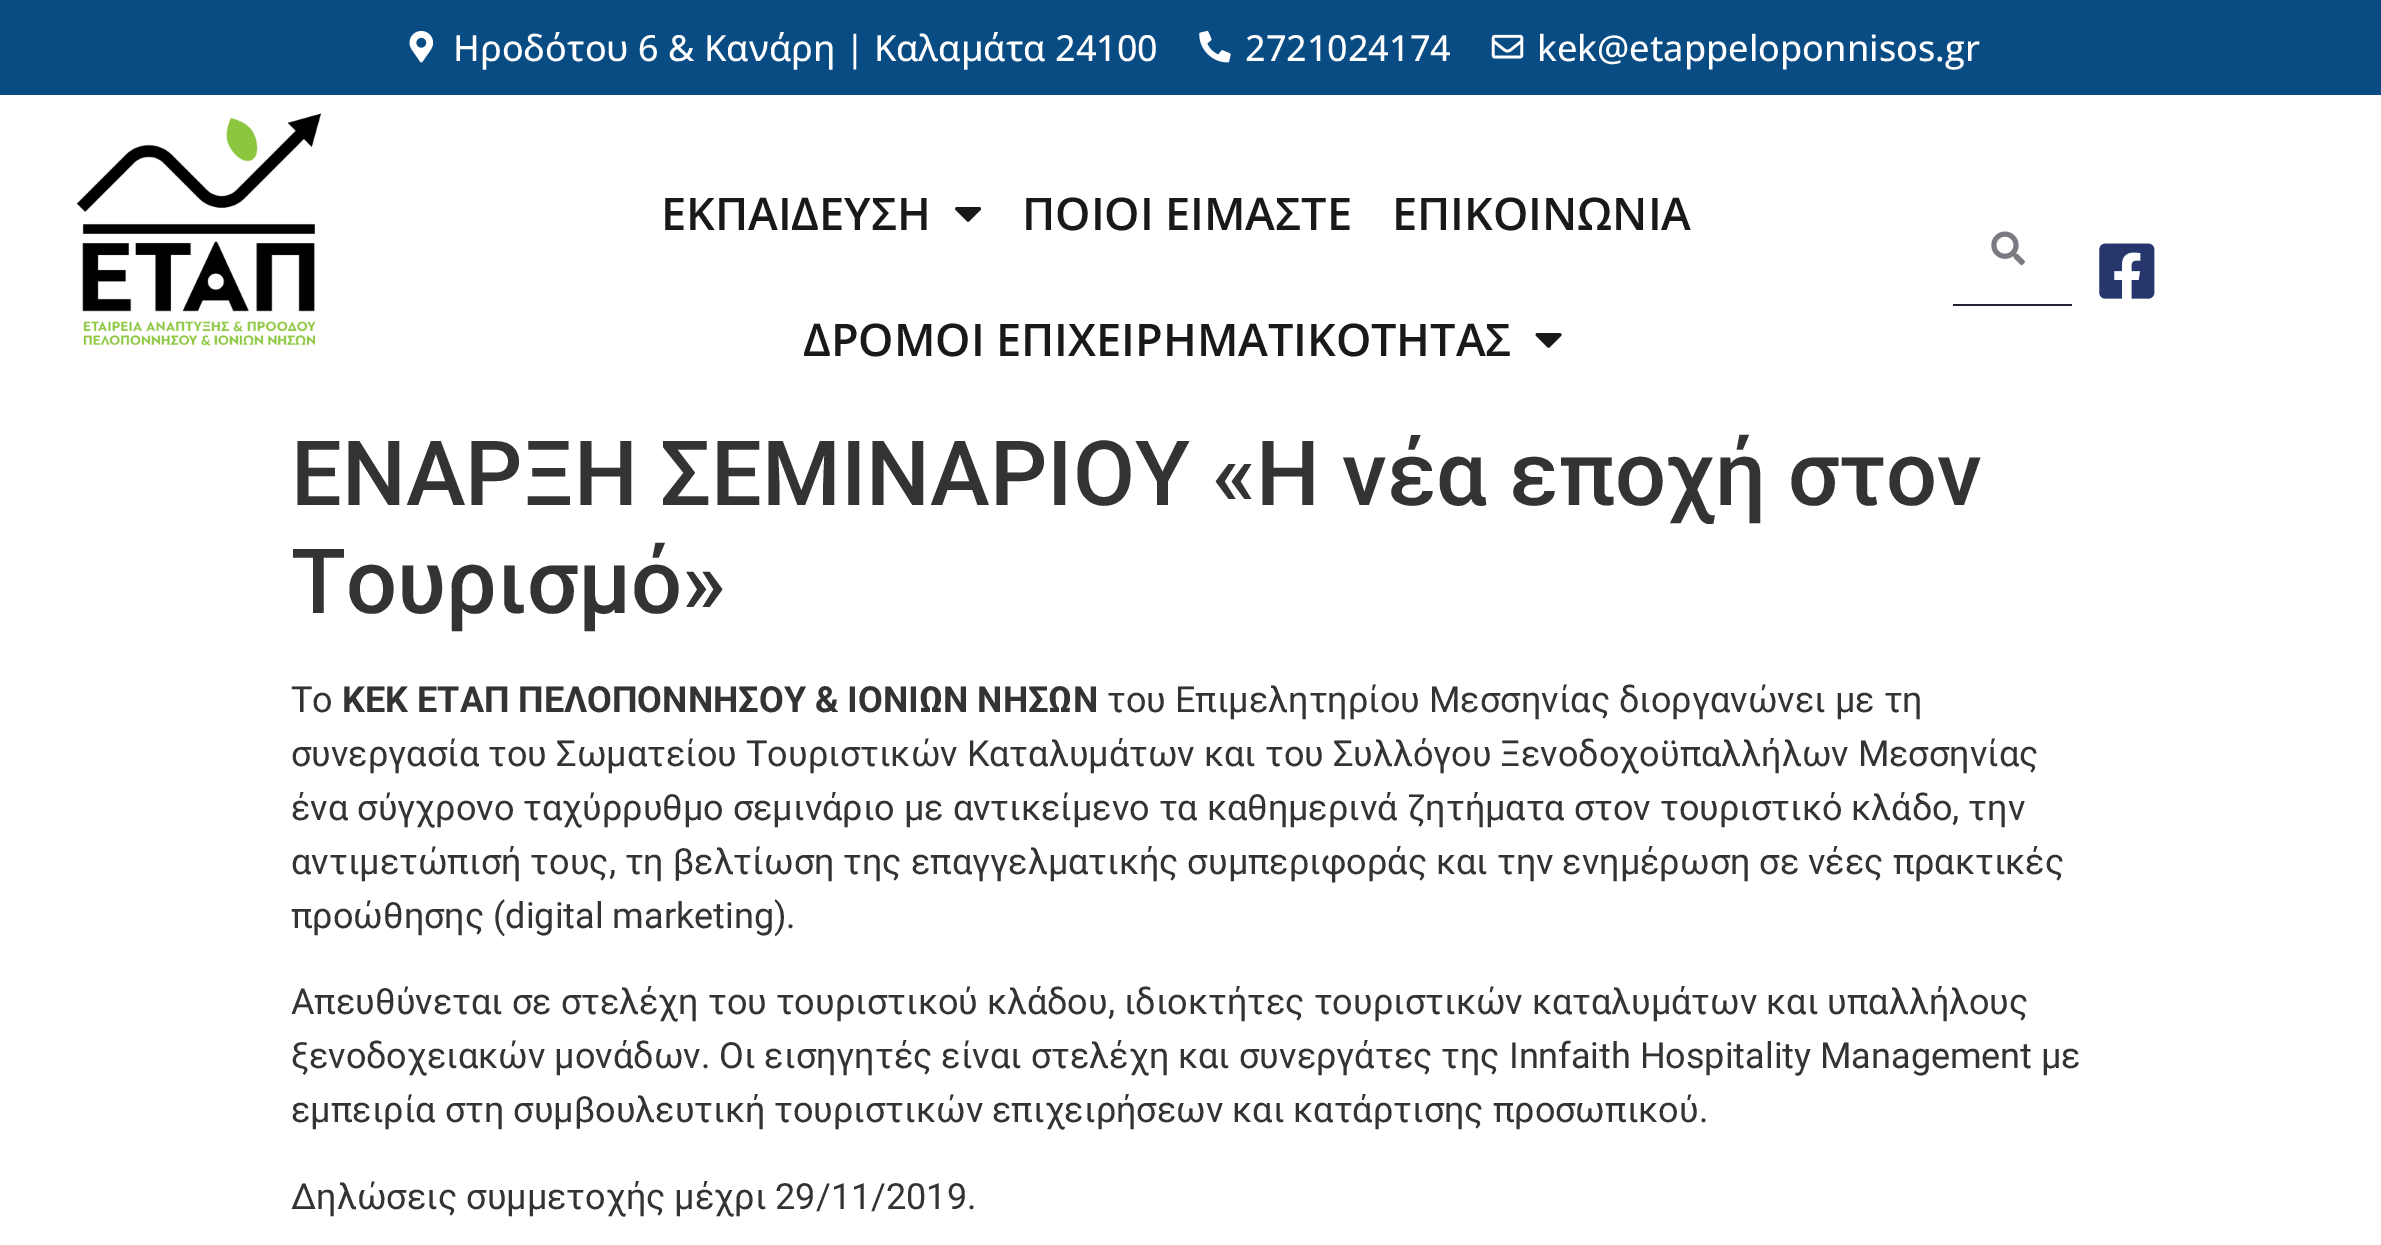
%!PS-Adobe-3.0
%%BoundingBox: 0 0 2381 1245
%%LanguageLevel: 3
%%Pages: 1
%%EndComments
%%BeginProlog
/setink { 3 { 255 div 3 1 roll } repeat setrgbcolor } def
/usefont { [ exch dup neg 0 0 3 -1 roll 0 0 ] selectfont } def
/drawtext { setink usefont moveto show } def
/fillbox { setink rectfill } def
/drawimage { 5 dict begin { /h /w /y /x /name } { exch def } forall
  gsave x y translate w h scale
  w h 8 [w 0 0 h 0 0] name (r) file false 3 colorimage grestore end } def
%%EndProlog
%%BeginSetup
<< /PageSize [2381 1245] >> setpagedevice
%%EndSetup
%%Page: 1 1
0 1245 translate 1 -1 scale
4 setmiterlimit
0 0 2381 1245 255 255 255 fillbox
0 0 2381 95 9 76 131 fillbox
(assets/img1.rgb) 409 30 25 33 drawimage
(Ηροδότου 6 & Κανάρη | Καλαμάτα 24100) 453 61 /OpenSans-Medium 36 255 255 255 drawtext
(assets/img2.rgb) 1199 31 32 32 drawimage
(2721024174) 1245 61 /OpenSans-Medium 36 255 255 255 drawtext
(assets/img3.rgb) 1491 34 33 25 drawimage
(kek@etappeloponnisos.gr) 1537 61 /OpenSans-Medium 36 255 255 255 drawtext
(assets/img4.rgb) 76 113 245 233 drawimage
(ΕΚΠΑΙΔΕΥΣΗ) 661 230 /OpenSans-SemiBold 45 26 24 24 drawtext
(assets/img5.rgb) 955 207 27 15 drawimage
(ΠΟΙΟΙ ΕΙΜΑΣΤΕ) 1022 230 /OpenSans-SemiBold 45 26 24 24 drawtext
(ΕΠΙΚΟΙΝΩΝΙΑ) 1392 230 /OpenSans-SemiBold 45 26 24 24 drawtext
(ΔΡΟΜΟΙ ΕΠΙΧΕΙΡΗΜΑΤΙΚΟΤΗΤΑΣ) 803 356 /OpenSans-SemiBold 45 26 24 24 drawtext
(assets/img6.rgb) 1535 333 27 15 drawimage
1953 304 119 2 33 33 49 fillbox
(assets/img7.rgb) 1991 231 34 35 drawimage
(assets/img8.rgb) 2099 243 56 56 drawimage
(ΕΝΑΡΞΗ ΣΕΜΙΝΑΡΙΟΥ «Η νέα εποχή στον) 291 505 /Roboto-Medium 90 51 51 51 drawtext
(Τουρισμό») 291 613 /Roboto-Medium 90 51 51 51 drawtext
(Το) 291 712 /Roboto-Regular 36 51 51 51 drawtext
(ΚΕΚ ΕΤΑΠ ΠΕΛΟΠΟΝΝΗΣΟΥ & ΙΟΝΙΩΝ ΝΗΣΩΝ) 342 712 /Roboto-Bold 36 51 51 51 drawtext
(του Επιμελητηρίου Μεσσηνίας διοργανώνει με τη) 1107 712 /Roboto-Regular 36 51 51 51 drawtext
(συνεργασία του Σωματείου Τουριστικών Καταλυμάτων και του Συλλόγου Ξενοδοχοϋπαλλήλων Μεσσηνίας) 291 766 /Roboto-Regular 36 51 51 51 drawtext
(ένα σύγχρονο ταχύρρυθμο σεμινάριο με αντικείμενο τα καθημερινά ζητήματα στον τουριστικό κλάδο, την) 291 820 /Roboto-Regular 36 51 51 51 drawtext
(αντιμετώπισή τους, τη βελτίωση της επαγγελματικής συμπεριφοράς και την ενημέρωση σε νέες πρακτικές) 291 874 /Roboto-Regular 36 51 51 51 drawtext
(προώθησης \(digital marketing\).) 291 928 /Roboto-Regular 36 51 51 51 drawtext
(Απευθύνεται σε στελέχη του τουριστικού κλάδου, ιδιοκτήτες τουριστικών καταλυμάτων και υπαλλήλους) 291 1014 /Roboto-Regular 36 51 51 51 drawtext
(ξενοδοχειακών μονάδων. Οι εισηγητές είναι στελέχη και συνεργάτες της Innfaith Hospitality Management με) 291 1068 /Roboto-Regular 36 51 51 51 drawtext
(εμπειρία στη συμβουλευτική τουριστικών επιχειρήσεων και κατάρτισης προσωπικού.) 291 1122 /Roboto-Regular 36 51 51 51 drawtext
(Δηλώσεις συμμετοχής μέχρι 29/11/2019.) 291 1209 /Roboto-Regular 36 51 51 51 drawtext
showpage
%%EOF
